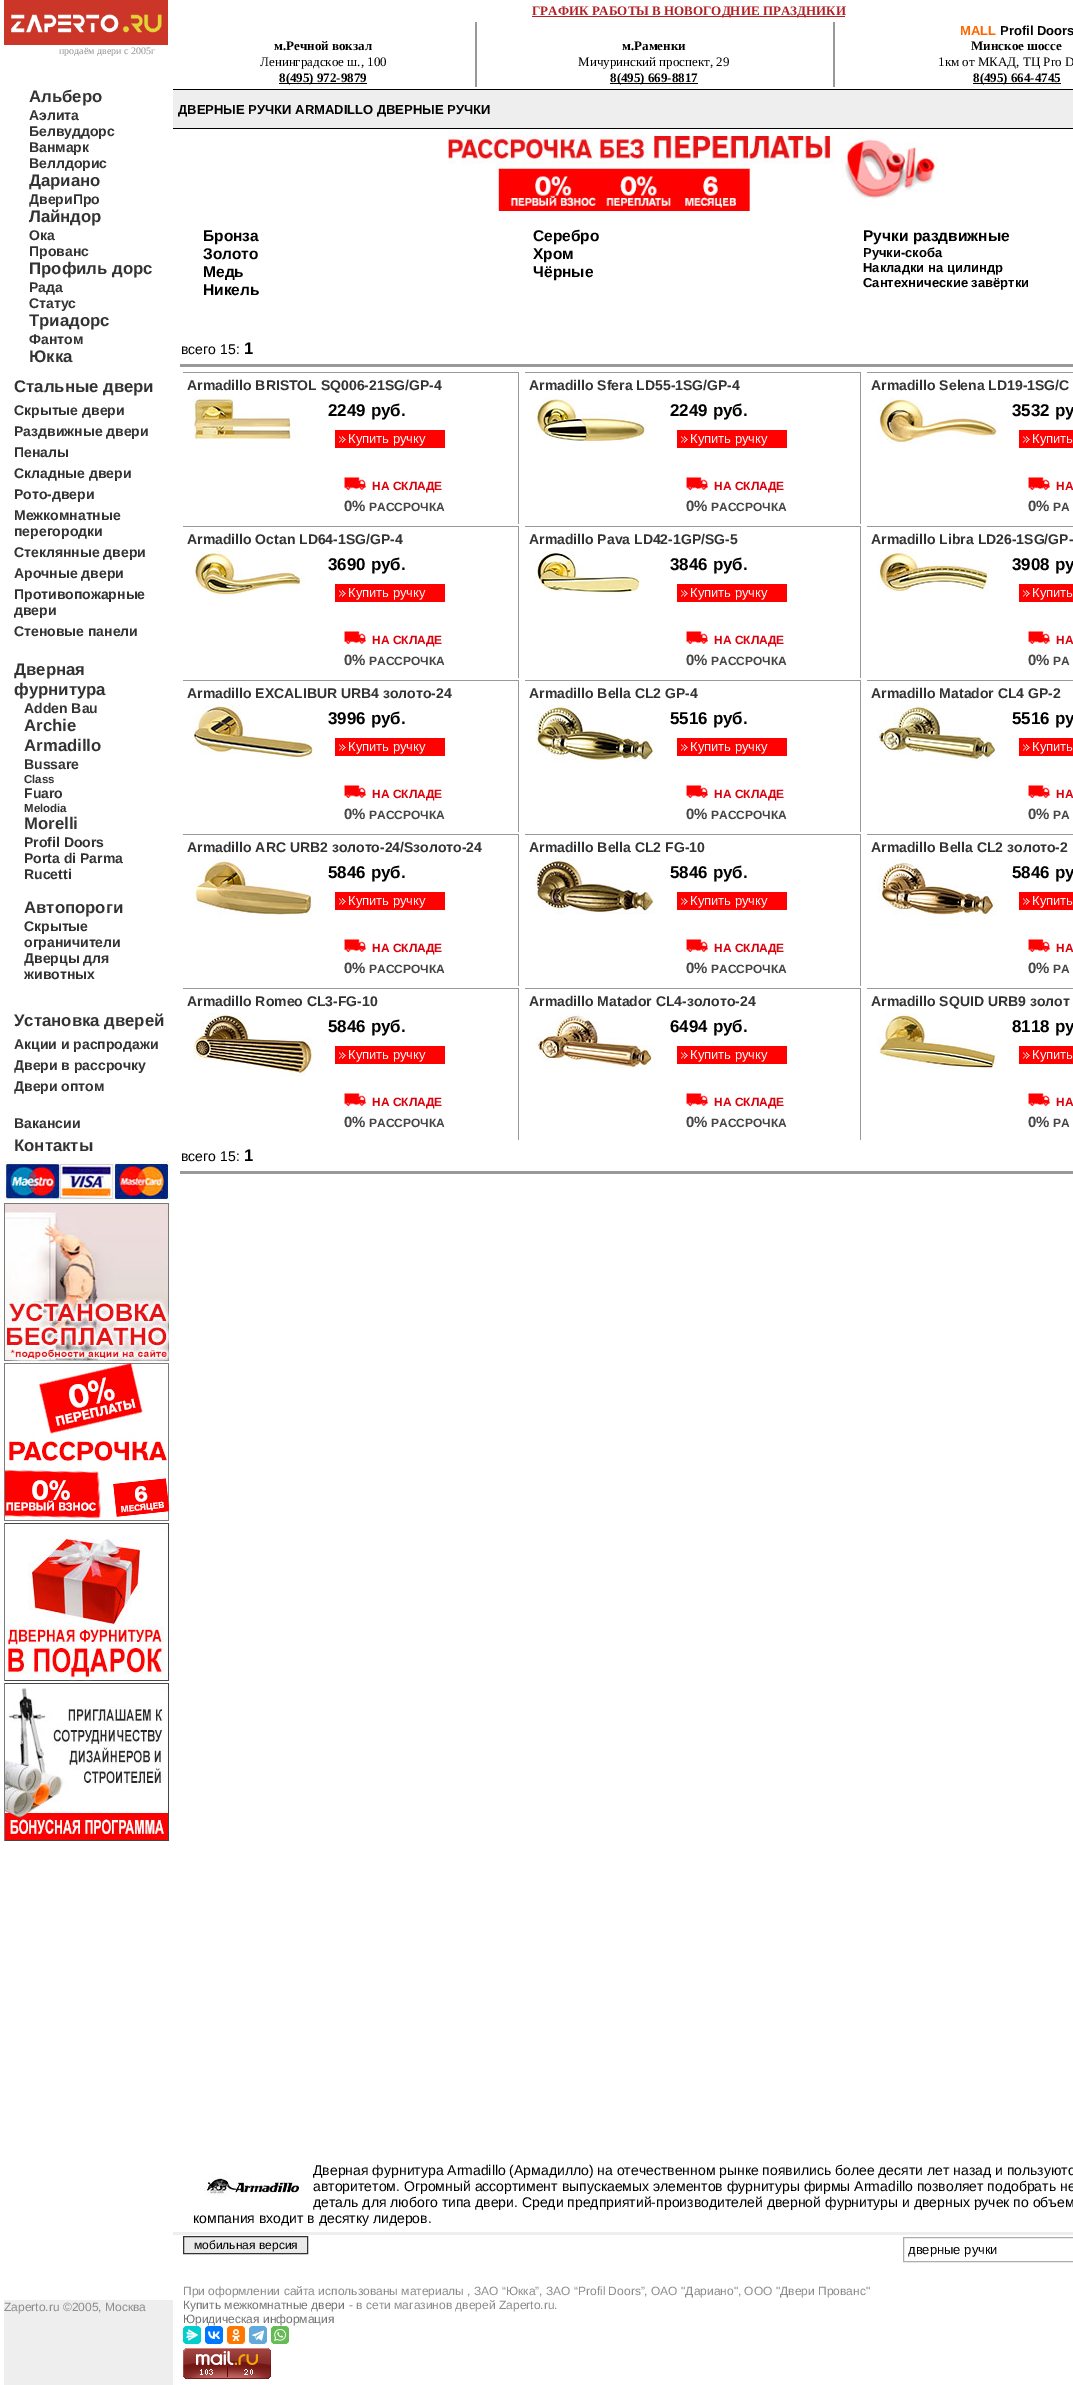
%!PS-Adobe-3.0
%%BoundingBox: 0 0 1073 2385
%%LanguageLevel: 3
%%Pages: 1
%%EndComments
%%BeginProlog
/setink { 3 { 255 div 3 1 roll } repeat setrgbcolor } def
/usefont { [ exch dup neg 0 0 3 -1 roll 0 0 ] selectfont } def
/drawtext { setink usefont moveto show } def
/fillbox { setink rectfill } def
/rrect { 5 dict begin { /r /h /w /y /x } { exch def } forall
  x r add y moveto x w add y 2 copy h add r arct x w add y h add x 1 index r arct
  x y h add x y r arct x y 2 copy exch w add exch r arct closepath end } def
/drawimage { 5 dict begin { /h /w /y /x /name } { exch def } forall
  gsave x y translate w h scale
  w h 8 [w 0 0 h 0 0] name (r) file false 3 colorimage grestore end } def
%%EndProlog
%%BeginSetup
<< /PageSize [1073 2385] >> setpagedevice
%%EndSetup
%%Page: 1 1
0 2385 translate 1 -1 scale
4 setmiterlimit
0 0 1073 2385 255 255 255 fillbox
(assets/img1.rgb) 4 0 164 45 drawimage
(продаём двери c 2005г) 59 54 /LiberationSerif-Regular 10 147 147 147 drawtext
(Альберо) 29 102 /LiberationSans-Bold 16.75 51 51 51 drawtext
(Аэлита) 29 120 /LiberationSans-Bold 14 51 51 51 drawtext
(Белвуддорс) 29 136 /LiberationSans-Bold 14 51 51 51 drawtext
(Ванмарк) 29 152 /LiberationSans-Bold 14 51 51 51 drawtext
(Веллдорис) 29 168 /LiberationSans-Bold 14 51 51 51 drawtext
(Дариано) 29 186 /LiberationSans-Bold 16.75 51 51 51 drawtext
(ДвериПро) 29 204 /LiberationSans-Bold 14 51 51 51 drawtext
(Лайндор) 29 222 /LiberationSans-Bold 16.75 51 51 51 drawtext
(Ока) 29 240 /LiberationSans-Bold 14 51 51 51 drawtext
(Прованс) 29 256 /LiberationSans-Bold 14 51 51 51 drawtext
(Профиль дорс) 29 274 /LiberationSans-Bold 16.75 51 51 51 drawtext
(Рада) 29 292 /LiberationSans-Bold 14 51 51 51 drawtext
(Статус) 29 308 /LiberationSans-Bold 14 51 51 51 drawtext
(Триадорс) 29 326 /LiberationSans-Bold 16.75 51 51 51 drawtext
(Фантом) 29 344 /LiberationSans-Bold 14 51 51 51 drawtext
(Юкка) 29 362 /LiberationSans-Bold 16.75 51 51 51 drawtext
(Стальные двери) 14 392 /LiberationSans-Bold 16.75 51 51 51 drawtext
(Скрытые двери) 14 415 /LiberationSans-Bold 14 51 51 51 drawtext
(Раздвижные двери) 14 436 /LiberationSans-Bold 14 51 51 51 drawtext
(Пеналы) 14 457 /LiberationSans-Bold 14 51 51 51 drawtext
(Складные двери) 14 478 /LiberationSans-Bold 14 51 51 51 drawtext
(Рото-двери) 14 499 /LiberationSans-Bold 14 51 51 51 drawtext
(Межкомнатные) 14 520 /LiberationSans-Bold 14 51 51 51 drawtext
(перегородки) 14 536 /LiberationSans-Bold 14 51 51 51 drawtext
(Стеклянные двери) 14 557 /LiberationSans-Bold 14 51 51 51 drawtext
(Арочные двери) 14 578 /LiberationSans-Bold 14 51 51 51 drawtext
(Противопожарные) 14 599 /LiberationSans-Bold 14 51 51 51 drawtext
(двери) 14 615 /LiberationSans-Bold 14 51 51 51 drawtext
(Стеновые панели) 14 636 /LiberationSans-Bold 14 51 51 51 drawtext
(Дверная) 14 675 /LiberationSans-Bold 16.75 51 51 51 drawtext
(фурнитура) 14 695 /LiberationSans-Bold 16.75 51 51 51 drawtext
(Adden Bau) 24 713 /LiberationSans-Bold 14 51 51 51 drawtext
(Archie) 24 731 /LiberationSans-Bold 16.75 51 51 51 drawtext
(Armadillo) 24 751 /LiberationSans-Bold 16.75 51 51 51 drawtext
(Bussare) 24 769 /LiberationSans-Bold 14 51 51 51 drawtext
(Class) 24 783 /LiberationSans-Bold 11.5 51 51 51 drawtext
(Fuaro) 24 798 /LiberationSans-Bold 14 51 51 51 drawtext
(Melodia) 24 812 /LiberationSans-Bold 11.5 51 51 51 drawtext
(Morelli) 24 829 /LiberationSans-Bold 16.75 51 51 51 drawtext
(Profil Doors) 24 847 /LiberationSans-Bold 14 51 51 51 drawtext
(Porta di Parma) 24 863 /LiberationSans-Bold 14 51 51 51 drawtext
(Rucetti) 24 879 /LiberationSans-Bold 14 51 51 51 drawtext
(Автопороги) 24 913 /LiberationSans-Bold 16.75 51 51 51 drawtext
(Скрытые) 24 931 /LiberationSans-Bold 14 51 51 51 drawtext
(ограничители) 24 947 /LiberationSans-Bold 14 51 51 51 drawtext
(Дверцы для) 24 963 /LiberationSans-Bold 14 51 51 51 drawtext
(животных) 24 979 /LiberationSans-Bold 14 51 51 51 drawtext
(Установка дверей) 14 1026 /LiberationSans-Bold 16.75 51 51 51 drawtext
(Акции и распродажи) 14 1049 /LiberationSans-Bold 14 51 51 51 drawtext
(Двери в рассрочку) 14 1070 /LiberationSans-Bold 14 51 51 51 drawtext
(Двери оптом) 14 1091 /LiberationSans-Bold 14 51 51 51 drawtext
(Вакансии) 14 1128 /LiberationSans-Bold 14 51 51 51 drawtext
(Контакты) 14 1151 /LiberationSans-Bold 16.75 51 51 51 drawtext
(assets/img2.rgb) 4 1161 166 40 drawimage
(assets/img3.rgb) 4 1202 166 160 drawimage
(assets/img4.rgb) 4 1362 166 159 drawimage
(assets/img5.rgb) 4 1522 166 160 drawimage
(assets/img6.rgb) 4 1682 166 160 drawimage
4 2300 169 85 238 238 238 fillbox
(Zaperto.ru ©2005, Москва) 4 2311 /LiberationSans-Regular 12 140 140 140 drawtext
532 16 313 1 177 33 37 fillbox
(ГРАФИК РАБОТЫ В НОВОГОДНИЕ ПРАЗДНИКИ) 532 15 /LiberationSerif-Bold 13 177 33 37 drawtext
475 22 2 65 153 153 153 fillbox
(м.Речной вокзал) 274 50 /LiberationSerif-Bold 13 0 0 0 drawtext
(Ленинградское ш., 100) 260 66 /LiberationSerif-Regular 13 0 0 0 drawtext
279 83 88 1 0 0 0 fillbox
(8\(495\) 972-9879) 279 82 /LiberationSerif-Bold 13 0 0 0 drawtext
833 22 2 65 153 153 153 fillbox
(м.Раменки) 622 50 /LiberationSerif-Bold 13 0 0 0 drawtext
(Мичуринский проспект, 29) 578 66 /LiberationSerif-Regular 13 0 0 0 drawtext
610 83 88 1 0 0 0 fillbox
(8\(495\) 669-8817) 610 82 /LiberationSerif-Bold 13 0 0 0 drawtext
(MALL) 960 35 /LiberationSans-Bold 13 255 102 0 drawtext
(Profil Doors) 1000 35 /LiberationSans-Bold 13 0 0 0 drawtext
(Минское шоссе) 971 50 /LiberationSerif-Bold 13 0 0 0 drawtext
(1км от МКАД, ТЦ Pro D) 938 66 /LiberationSerif-Regular 13 0 0 0 drawtext
973 83 88 1 0 0 0 fillbox
(8\(495\) 664-4745) 973 82 /LiberationSerif-Bold 13 0 0 0 drawtext
173 90 900 38 238 238 238 fillbox
173 89 900 1 0 0 0 fillbox
173 128 900 1 0 0 0 fillbox
(ДВЕРНЫЕ РУЧКИ ARMADILLO ДВЕРНЫЕ РУЧКИ) 178 114 /LiberationSans-Bold 13 0 0 0 drawtext
(assets/img7.rgb) 448 136 490 75 drawimage
(Бронза) 203 241 /LiberationSans-Bold 15.5 0 0 0 drawtext
(Золото) 203 259 /LiberationSans-Bold 15.5 0 0 0 drawtext
(Медь) 203 277 /LiberationSans-Bold 15.5 0 0 0 drawtext
(Никель) 203 295 /LiberationSans-Bold 15.5 0 0 0 drawtext
(Серебро) 533 241 /LiberationSans-Bold 15.5 0 0 0 drawtext
(Хром) 533 259 /LiberationSans-Bold 15.5 0 0 0 drawtext
(Чёрные) 533 277 /LiberationSans-Bold 15.5 0 0 0 drawtext
(Ручки раздвижные) 863 241 /LiberationSans-Bold 15.5 0 0 0 drawtext
(Ручки-скоба) 863 257 /LiberationSans-Bold 13 0 0 0 drawtext
(Накладки на цилиндр) 863 272 /LiberationSans-Bold 13 0 0 0 drawtext
(Сантехнические завёртки) 863 287 /LiberationSans-Bold 13 0 0 0 drawtext
(всего 15:) 181 354 /LiberationSans-Regular 14 0 0 0 drawtext
(1) 244 354 /LiberationSans-Bold 16.75 0 0 0 drawtext
180 364 893 3 153 153 153 fillbox
183 372 336 1 153 153 153 fillbox
518 372 1 152 153 153 153 fillbox
(Armadillo BRISTOL SQ006-21SG/GP-4) 187 390 /LiberationSans-Bold 14 51 51 51 drawtext
(assets/img8.rgb) 193 397 104 44 drawimage
(2249 руб.) 328 416 /LiberationSans-Bold 17 0 0 0 drawtext
(assets/img9.rgb) 335 430 110 18 drawimage
(Купить ручку) 348 443 /LiberationSans-Regular 13 255 255 255 drawtext
(assets/img10.rgb) 344 477 22 13 drawimage
(НА СКЛАДЕ) 372 490 /LiberationSans-Bold 12 219 1 12 drawtext
(0%) 344 511 /LiberationSans-Bold 15 69 69 69 drawtext
(РАССРОЧКА) 369 511 /LiberationSans-Bold 12 69 69 69 drawtext
525 372 336 1 153 153 153 fillbox
860 372 1 152 153 153 153 fillbox
(Armadillo Sfera LD55-1SG/GP-4) 529 390 /LiberationSans-Bold 14 51 51 51 drawtext
(assets/img11.rgb) 535 397 112 44 drawimage
(2249 руб.) 670 416 /LiberationSans-Bold 17 0 0 0 drawtext
(assets/img9.rgb) 677 430 110 18 drawimage
(Купить ручку) 690 443 /LiberationSans-Regular 13 255 255 255 drawtext
(assets/img10.rgb) 686 477 22 13 drawimage
(НА СКЛАДЕ) 714 490 /LiberationSans-Bold 12 219 1 12 drawtext
(0%) 686 511 /LiberationSans-Bold 15 69 69 69 drawtext
(РАССРОЧКА) 711 511 /LiberationSans-Bold 12 69 69 69 drawtext
867 372 206 1 153 153 153 fillbox
(Armadillo Selena LD19-1SG/C) 871 390 /LiberationSans-Bold 14 51 51 51 drawtext
(assets/img12.rgb) 877 397 120 46 drawimage
(3532 ру) 1012 416 /LiberationSans-Bold 17 0 0 0 drawtext
(assets/img13.rgb) 1019 430 54 18 drawimage
(Купить) 1032 443 /LiberationSans-Regular 13 255 255 255 drawtext
(assets/img10.rgb) 1028 477 22 13 drawimage
(НА) 1056 490 /LiberationSans-Bold 12 219 1 12 drawtext
(0%) 1028 511 /LiberationSans-Bold 15 69 69 69 drawtext
(РА) 1053 511 /LiberationSans-Bold 12 69 69 69 drawtext
183 526 336 1 153 153 153 fillbox
518 526 1 152 153 153 153 fillbox
(Armadillo Octan LD64-1SG/GP-4) 187 544 /LiberationSans-Bold 14 51 51 51 drawtext
(assets/img14.rgb) 193 551 112 44 drawimage
(3690 руб.) 328 570 /LiberationSans-Bold 17 0 0 0 drawtext
(assets/img9.rgb) 335 584 110 18 drawimage
(Купить ручку) 348 597 /LiberationSans-Regular 13 255 255 255 drawtext
(assets/img10.rgb) 344 631 22 13 drawimage
(НА СКЛАДЕ) 372 644 /LiberationSans-Bold 12 219 1 12 drawtext
(0%) 344 665 /LiberationSans-Bold 15 69 69 69 drawtext
(РАССРОЧКА) 369 665 /LiberationSans-Bold 12 69 69 69 drawtext
525 526 336 1 153 153 153 fillbox
860 526 1 152 153 153 153 fillbox
(Armadillo Pava LD42-1GP/SG-5) 529 544 /LiberationSans-Bold 14 51 51 51 drawtext
(assets/img15.rgb) 535 551 105 44 drawimage
(3846 руб.) 670 570 /LiberationSans-Bold 17 0 0 0 drawtext
(assets/img9.rgb) 677 584 110 18 drawimage
(Купить ручку) 690 597 /LiberationSans-Regular 13 255 255 255 drawtext
(assets/img10.rgb) 686 631 22 13 drawimage
(НА СКЛАДЕ) 714 644 /LiberationSans-Bold 12 219 1 12 drawtext
(0%) 686 665 /LiberationSans-Bold 15 69 69 69 drawtext
(РАССРОЧКА) 711 665 /LiberationSans-Bold 12 69 69 69 drawtext
867 526 206 1 153 153 153 fillbox
(Armadillo Libra LD26-1SG/GP-) 871 544 /LiberationSans-Bold 14 51 51 51 drawtext
(assets/img16.rgb) 877 551 112 40 drawimage
(3908 ру) 1012 570 /LiberationSans-Bold 17 0 0 0 drawtext
(assets/img13.rgb) 1019 584 54 18 drawimage
(Купить) 1032 597 /LiberationSans-Regular 13 255 255 255 drawtext
(assets/img10.rgb) 1028 631 22 13 drawimage
(НА) 1056 644 /LiberationSans-Bold 12 219 1 12 drawtext
(0%) 1028 665 /LiberationSans-Bold 15 69 69 69 drawtext
(РА) 1053 665 /LiberationSans-Bold 12 69 69 69 drawtext
183 680 336 1 153 153 153 fillbox
518 680 1 152 153 153 153 fillbox
(Armadillo EXCALIBUR URB4 золото-24) 187 698 /LiberationSans-Bold 14 51 51 51 drawtext
(assets/img17.rgb) 193 705 120 54 drawimage
(3996 руб.) 328 724 /LiberationSans-Bold 17 0 0 0 drawtext
(assets/img9.rgb) 335 738 110 18 drawimage
(Купить ручку) 348 751 /LiberationSans-Regular 13 255 255 255 drawtext
(assets/img10.rgb) 344 785 22 13 drawimage
(НА СКЛАДЕ) 372 798 /LiberationSans-Bold 12 219 1 12 drawtext
(0%) 344 819 /LiberationSans-Bold 15 69 69 69 drawtext
(РАССРОЧКА) 369 819 /LiberationSans-Bold 12 69 69 69 drawtext
525 680 336 1 153 153 153 fillbox
860 680 1 152 153 153 153 fillbox
(Armadillo Bella CL2 GP-4) 529 698 /LiberationSans-Bold 14 51 51 51 drawtext
(assets/img18.rgb) 535 705 120 56 drawimage
(5516 руб.) 670 724 /LiberationSans-Bold 17 0 0 0 drawtext
(assets/img9.rgb) 677 738 110 18 drawimage
(Купить ручку) 690 751 /LiberationSans-Regular 13 255 255 255 drawtext
(assets/img10.rgb) 686 785 22 13 drawimage
(НА СКЛАДЕ) 714 798 /LiberationSans-Bold 12 219 1 12 drawtext
(0%) 686 819 /LiberationSans-Bold 15 69 69 69 drawtext
(РАССРОЧКА) 711 819 /LiberationSans-Bold 12 69 69 69 drawtext
867 680 206 1 153 153 153 fillbox
(Armadillo Matador CL4 GP-2) 871 698 /LiberationSans-Bold 14 51 51 51 drawtext
(assets/img19.rgb) 877 705 120 56 drawimage
(5516 ру) 1012 724 /LiberationSans-Bold 17 0 0 0 drawtext
(assets/img13.rgb) 1019 738 54 18 drawimage
(Купить) 1032 751 /LiberationSans-Regular 13 255 255 255 drawtext
(assets/img10.rgb) 1028 785 22 13 drawimage
(НА) 1056 798 /LiberationSans-Bold 12 219 1 12 drawtext
(0%) 1028 819 /LiberationSans-Bold 15 69 69 69 drawtext
(РА) 1053 819 /LiberationSans-Bold 12 69 69 69 drawtext
183 834 336 1 153 153 153 fillbox
518 834 1 152 153 153 153 fillbox
(Armadillo ARC URB2 золото-24/Sзолото-24) 187 852 /LiberationSans-Bold 14 51 51 51 drawtext
(assets/img20.rgb) 193 859 120 56 drawimage
(5846 руб.) 328 878 /LiberationSans-Bold 17 0 0 0 drawtext
(assets/img9.rgb) 335 892 110 18 drawimage
(Купить ручку) 348 905 /LiberationSans-Regular 13 255 255 255 drawtext
(assets/img10.rgb) 344 939 22 13 drawimage
(НА СКЛАДЕ) 372 952 /LiberationSans-Bold 12 219 1 12 drawtext
(0%) 344 973 /LiberationSans-Bold 15 69 69 69 drawtext
(РАССРОЧКА) 369 973 /LiberationSans-Bold 12 69 69 69 drawtext
525 834 336 1 153 153 153 fillbox
860 834 1 152 153 153 153 fillbox
(Armadillo Bella CL2 FG-10) 529 852 /LiberationSans-Bold 14 51 51 51 drawtext
(assets/img21.rgb) 535 859 120 55 drawimage
(5846 руб.) 670 878 /LiberationSans-Bold 17 0 0 0 drawtext
(assets/img9.rgb) 677 892 110 18 drawimage
(Купить ручку) 690 905 /LiberationSans-Regular 13 255 255 255 drawtext
(assets/img10.rgb) 686 939 22 13 drawimage
(НА СКЛАДЕ) 714 952 /LiberationSans-Bold 12 219 1 12 drawtext
(0%) 686 973 /LiberationSans-Bold 15 69 69 69 drawtext
(РАССРОЧКА) 711 973 /LiberationSans-Bold 12 69 69 69 drawtext
867 834 206 1 153 153 153 fillbox
(Armadillo Bella CL2 золото-2) 871 852 /LiberationSans-Bold 14 51 51 51 drawtext
(assets/img22.rgb) 877 859 120 56 drawimage
(5846 ру) 1012 878 /LiberationSans-Bold 17 0 0 0 drawtext
(assets/img13.rgb) 1019 892 54 18 drawimage
(Купить) 1032 905 /LiberationSans-Regular 13 255 255 255 drawtext
(assets/img10.rgb) 1028 939 22 13 drawimage
(НА) 1056 952 /LiberationSans-Bold 12 219 1 12 drawtext
(0%) 1028 973 /LiberationSans-Bold 15 69 69 69 drawtext
(РА) 1053 973 /LiberationSans-Bold 12 69 69 69 drawtext
183 988 336 1 153 153 153 fillbox
518 988 1 152 153 153 153 fillbox
(Armadillo Romeo CL3-FG-10) 187 1006 /LiberationSans-Bold 14 51 51 51 drawtext
(assets/img23.rgb) 193 1013 120 63 drawimage
(5846 руб.) 328 1032 /LiberationSans-Bold 17 0 0 0 drawtext
(assets/img9.rgb) 335 1046 110 18 drawimage
(Купить ручку) 348 1059 /LiberationSans-Regular 13 255 255 255 drawtext
(assets/img10.rgb) 344 1093 22 13 drawimage
(НА СКЛАДЕ) 372 1106 /LiberationSans-Bold 12 219 1 12 drawtext
(0%) 344 1127 /LiberationSans-Bold 15 69 69 69 drawtext
(РАССРОЧКА) 369 1127 /LiberationSans-Bold 12 69 69 69 drawtext
525 988 336 1 153 153 153 fillbox
860 988 1 152 153 153 153 fillbox
(Armadillo Matador CL4-золото-24) 529 1006 /LiberationSans-Bold 14 51 51 51 drawtext
(assets/img24.rgb) 535 1013 120 56 drawimage
(6494 руб.) 670 1032 /LiberationSans-Bold 17 0 0 0 drawtext
(assets/img9.rgb) 677 1046 110 18 drawimage
(Купить ручку) 690 1059 /LiberationSans-Regular 13 255 255 255 drawtext
(assets/img10.rgb) 686 1093 22 13 drawimage
(НА СКЛАДЕ) 714 1106 /LiberationSans-Bold 12 219 1 12 drawtext
(0%) 686 1127 /LiberationSans-Bold 15 69 69 69 drawtext
(РАССРОЧКА) 711 1127 /LiberationSans-Bold 12 69 69 69 drawtext
867 988 206 1 153 153 153 fillbox
(Armadillo SQUID URB9 золот) 871 1006 /LiberationSans-Bold 14 51 51 51 drawtext
(assets/img25.rgb) 877 1013 120 56 drawimage
(8118 ру) 1012 1032 /LiberationSans-Bold 17 0 0 0 drawtext
(assets/img13.rgb) 1019 1046 54 18 drawimage
(Купить) 1032 1059 /LiberationSans-Regular 13 255 255 255 drawtext
(assets/img10.rgb) 1028 1093 22 13 drawimage
(НА) 1056 1106 /LiberationSans-Bold 12 219 1 12 drawtext
(0%) 1028 1127 /LiberationSans-Bold 15 69 69 69 drawtext
(РА) 1053 1127 /LiberationSans-Bold 12 69 69 69 drawtext
(всего 15:) 181 1161 /LiberationSans-Regular 14 0 0 0 drawtext
(1) 244 1161 /LiberationSans-Bold 16.75 0 0 0 drawtext
180 1171 893 3 153 153 153 fillbox
(Дверная фурнитура Armadillo \(Армадилло\) на отечественном рынке появились более десяти лет назад и пользуютс) 313 2175 /LiberationSans-Regular 14 0 0 0 drawtext
(assets/img26.rgb) 203 2173 96 23 drawimage
(авторитетом. Огромный ассортимент выпускаемых элементов фурнитуры фирмы Armadillo позволяет подобрать не) 313 2191 /LiberationSans-Regular 14 0 0 0 drawtext
(деталь для любого типа двери. Среди предприятий-производителей дверной фурнитуры и дверных ручек по объем) 313 2207 /LiberationSans-Regular 14 0 0 0 drawtext
(компания входит в десятку лидеров.) 193 2223 /LiberationSans-Regular 14 0 0 0 drawtext
173 2232 900 3 238 238 238 fillbox
234 234 234 setink
183.5 2236.5 moveto 307.5 2236.5 lineto 307.5 2253.5 lineto 183.5 2253.5 lineto closepath gsave fill grestore
51 51 51 setink
stroke
(мобильная версия) 194 2249 /LiberationSans-Regular 12 0 0 0 drawtext
173 173 173 setink
903.5 2237.5 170 24 rectstroke
(дверные ручки) 908 2254 /LiberationSans-Regular 13 0 0 0 drawtext
(При оформлении сайта использованы материалы , ЗАО “Юкка”, ЗАО “Profil Doors”, ОАО "Дариано", ООО "Двери Прованс") 183 2295 /LiberationSans-Regular 12 140 140 140 drawtext
(Купить межкомнатные двери) 183 2309 /LiberationSans-Regular 12 115 115 115 drawtext
(- в сети магазинов дверей Zaperto.ru.) 349 2309 /LiberationSans-Regular 12 140 140 140 drawtext
(Юридическая информация) 183 2323 /LiberationSans-Regular 12 115 115 115 drawtext
3 206 206 setink
183 2326 18 18 4 rrect fill
(assets/img27.rgb) 186 2329 12 12 drawimage
0 119 255 setink
205 2326 18 18 4 rrect fill
(assets/img28.rgb) 208 2331 12 8 drawimage
255 119 0 setink
227 2326 18 18 4 rrect fill
(assets/img29.rgb) 232 2329 8 12 drawimage
100 169 220 setink
249 2326 18 18 4 rrect fill
(assets/img30.rgb) 252 2330 12 11 drawimage
101 188 84 setink
271 2326 18 18 4 rrect fill
(assets/img31.rgb) 274 2329 12 12 drawimage
(assets/img32.rgb) 183 2348 88 31 drawimage
showpage
%%EOF
